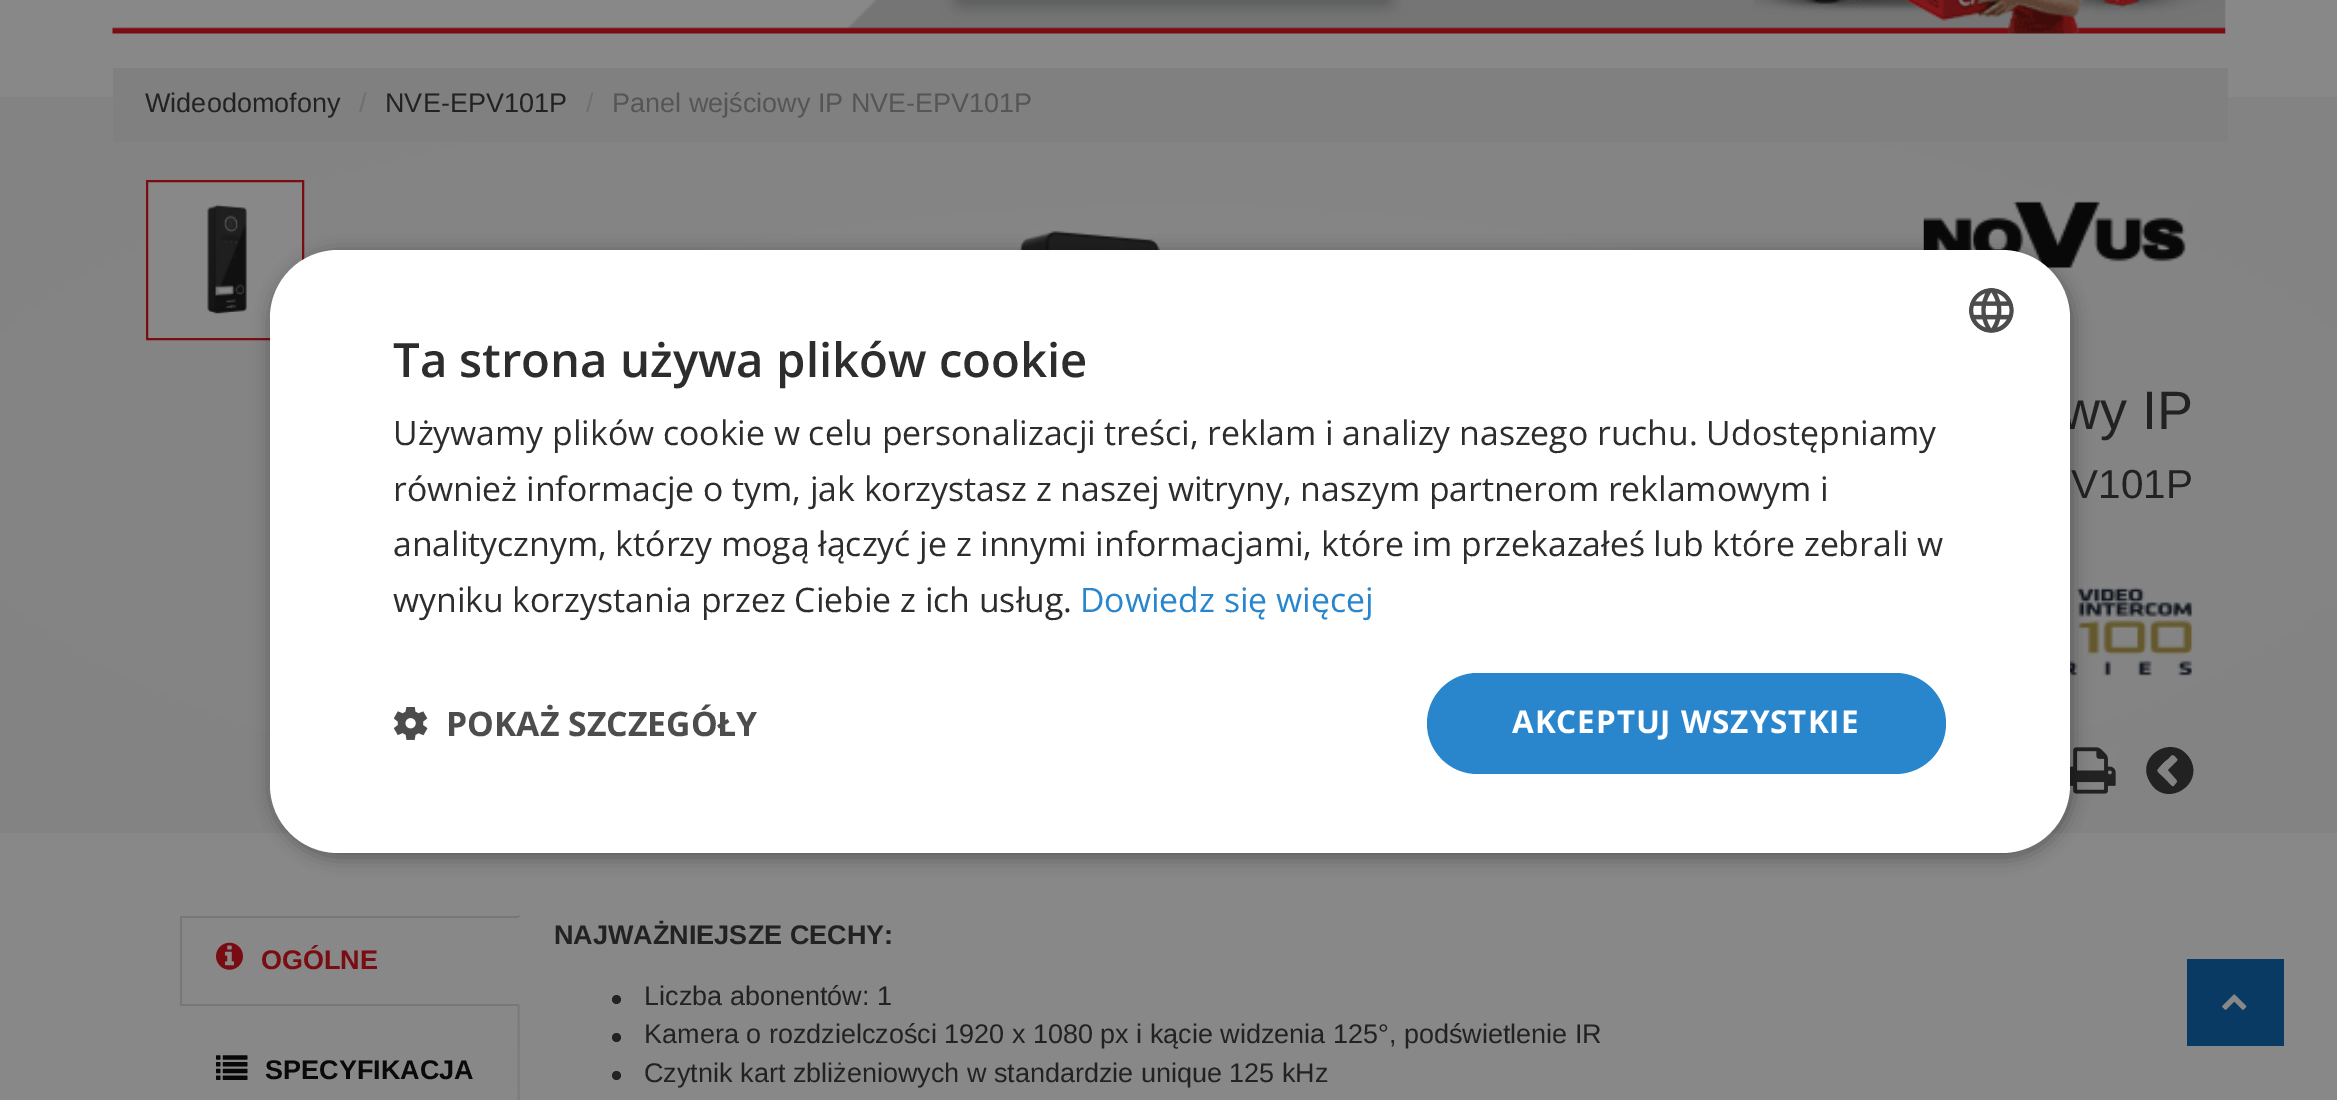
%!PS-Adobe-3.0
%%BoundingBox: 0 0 2337 1100
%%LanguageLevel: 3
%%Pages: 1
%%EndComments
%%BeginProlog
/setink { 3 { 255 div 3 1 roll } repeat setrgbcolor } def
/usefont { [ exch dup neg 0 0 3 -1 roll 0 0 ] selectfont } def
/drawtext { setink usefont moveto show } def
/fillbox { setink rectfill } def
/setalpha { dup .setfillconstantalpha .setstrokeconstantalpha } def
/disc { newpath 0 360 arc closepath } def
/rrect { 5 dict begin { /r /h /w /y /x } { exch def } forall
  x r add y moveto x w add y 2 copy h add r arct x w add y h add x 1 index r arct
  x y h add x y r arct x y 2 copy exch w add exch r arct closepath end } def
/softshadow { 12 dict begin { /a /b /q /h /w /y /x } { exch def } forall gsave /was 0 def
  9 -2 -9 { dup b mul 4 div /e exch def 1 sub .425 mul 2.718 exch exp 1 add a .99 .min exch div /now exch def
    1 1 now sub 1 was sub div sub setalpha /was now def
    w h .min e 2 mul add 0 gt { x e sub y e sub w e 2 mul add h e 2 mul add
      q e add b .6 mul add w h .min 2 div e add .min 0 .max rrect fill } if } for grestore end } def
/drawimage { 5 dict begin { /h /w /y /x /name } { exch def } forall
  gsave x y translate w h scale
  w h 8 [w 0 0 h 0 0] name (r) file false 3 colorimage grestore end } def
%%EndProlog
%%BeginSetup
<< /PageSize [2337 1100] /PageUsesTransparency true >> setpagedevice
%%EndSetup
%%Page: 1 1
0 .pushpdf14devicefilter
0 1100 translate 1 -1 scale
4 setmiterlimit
0 0 2337 1100 136 136 136 fillbox
(assets/img1.rgb) 112 0 2114 34 drawimage
gsave 0 97 moveto 2337 97 lineto 2337 833 lineto 0 833 lineto closepath clip newpath 1169 465 translate 1653 520 scale
<< /ShadingType 3 /ColorSpace /DeviceRGB /Coords [0 0 0 0 0 1] /Extend [true true] /Function << /FunctionType 2 /Domain [0 1] /C0 [0.533 0.533 0.533] /C1 [0.514 0.514 0.514] /N 1 >> >> shfill grestore
113 68 2115 74 128 128 128 fillbox
(Wideodomofony) 145 112 /LiberationSans-Regular 27 34 34 34 drawtext
(/) 359 112 /LiberationSans-Regular 27 111 111 111 drawtext
(NVE-EPV101P) 385 112 /LiberationSans-Regular 27 34 34 34 drawtext
(/) 586 112 /LiberationSans-Regular 27 111 111 111 drawtext
(Panel wejściowy IP NVE-EPV101P) 612 112 /LiberationSans-Regular 27 85 85 85 drawtext
136 136 136 setink
147 181 moveto 303 181 lineto 303 339 lineto 147 339 lineto closepath gsave fill grestore
121 13 18 setink
2 setlinewidth
stroke
(assets/img2.rgb) 207 204 40 110 drawimage
(assets/img3.rgb) 1019 230 141 20 drawimage
(assets/img4.rgb) 1923 201 263 68 drawimage
(wy IP) 2061 429 /LiberationSans-Regular 54 34 34 34 drawtext
(V101P) 2071 498 /LiberationSans-Regular 40.5 34 34 34 drawtext
(assets/img5.rgb) 2070 586 123 90 drawimage
(assets/img6.rgb) 2069 747 47 47 drawimage
2174 786 moveto 2177 782 2179 782 2175 778 curveto 2168 770 lineto 2177 761 lineto 2179 759 2176 758 2175 756 curveto 2172 754 2171 755 2169 758 curveto 2164 762 lineto 2154 773 2155 769 2167 781 curveto 2168 782 2172 788 2174 786 curveto closepath 2190 759 moveto 2205 785 2165 809 2150 782 curveto 2134 756 2174 732 2190 759 curveto closepath fill
(assets/img7.rgb) 517 915 3 185 drawimage
517 916 3 90 136 136 136 fillbox
119 119 119 setink
180 916 moveto 520 916 lineto 518 918 lineto 182 918 lineto closepath fill
520 1006 moveto 180 1006 lineto 182 1004 lineto 518 1004 lineto closepath fill
180 916 2 90 119 119 119 fillbox
(assets/img8.rgb) 216 942 27 28 drawimage
(OGÓLNE) 261 969 /LiberationSans-Bold 27 121 13 18 drawtext
(assets/img9.rgb) 216 1055 32 25 drawimage
(SPECYFIKACJA) 265 1079 /LiberationSans-Bold 27 9 9 9 drawtext
(NAJWAŻNIEJSZE CECHY:) 554 944 /LiberationSans-Bold 27 34 34 34 drawtext
616.5 999.5 4.5 disc fill
(Liczba abonentów: 1) 644 1005 /LiberationSans-Regular 27 34 34 34 drawtext
616.5 1037.5 4.5 disc fill
(Kamera o rozdzielczości 1920 x 1080 px i kącie widzenia 125°, podświetlenie IR) 644 1043 /LiberationSans-Regular 27 34 34 34 drawtext
616.5 1075.5 4.5 disc fill
(Czytnik kart zbliżeniowych w standardzie unique 125 kHz) 644 1082 /LiberationSans-Regular 27 34 34 34 drawtext
0 0 0 setink
272 254 1800 603 68 9 0.35 softshadow
255 255 255 setink
270 250 1800 603 68 rrect fill
(assets/img10.rgb) 1969 288 45 45 drawimage
(Ta strona używa plików cookie) 393 377 /OpenSans-SemiBold 47.25 45 45 45 drawtext
(Używamy plików cookie w celu personalizacji treści, reklam i analizy naszego ruchu. Udostępniamy) 393 445 /OpenSans-Regular 33.75 45 45 45 drawtext
(również informacje o tym, jak korzystasz z naszej witryny, naszym partnerom reklamowym i) 393 501 /OpenSans-Regular 33.75 45 45 45 drawtext
(analitycznym, którzy mogą łączyć je z innymi informacjami, które im przekazałeś lub które zebrali w) 393 556 /OpenSans-Regular 33.75 45 45 45 drawtext
(wyniku korzystania przez Ciebie z ich usług.) 393 612 /OpenSans-Regular 33.75 45 45 45 drawtext
(Dowiedz się więcej) 1080 612 /OpenSans-Regular 33.75 41 134 204 drawtext
(assets/img11.rgb) 394 707 34 33 drawimage
(POKAŻ SZCZEGÓŁY) 446 736 /OpenSans-Bold 33.75 77 77 77 drawtext
41 134 204 setink
1427 673 519 101 50.5 rrect fill
/OpenSans-Bold 31.5 usefont
255 255 255 setink
1512 733 moveto 0.9 0 (AKCEPTUJ WSZYSTKIE) ashow
2187 959 97 87 9 58 100 fillbox
(assets/img12.rgb) 2222 994 25 16 drawimage
.poppdf14devicefilter showpage
%%EOF
